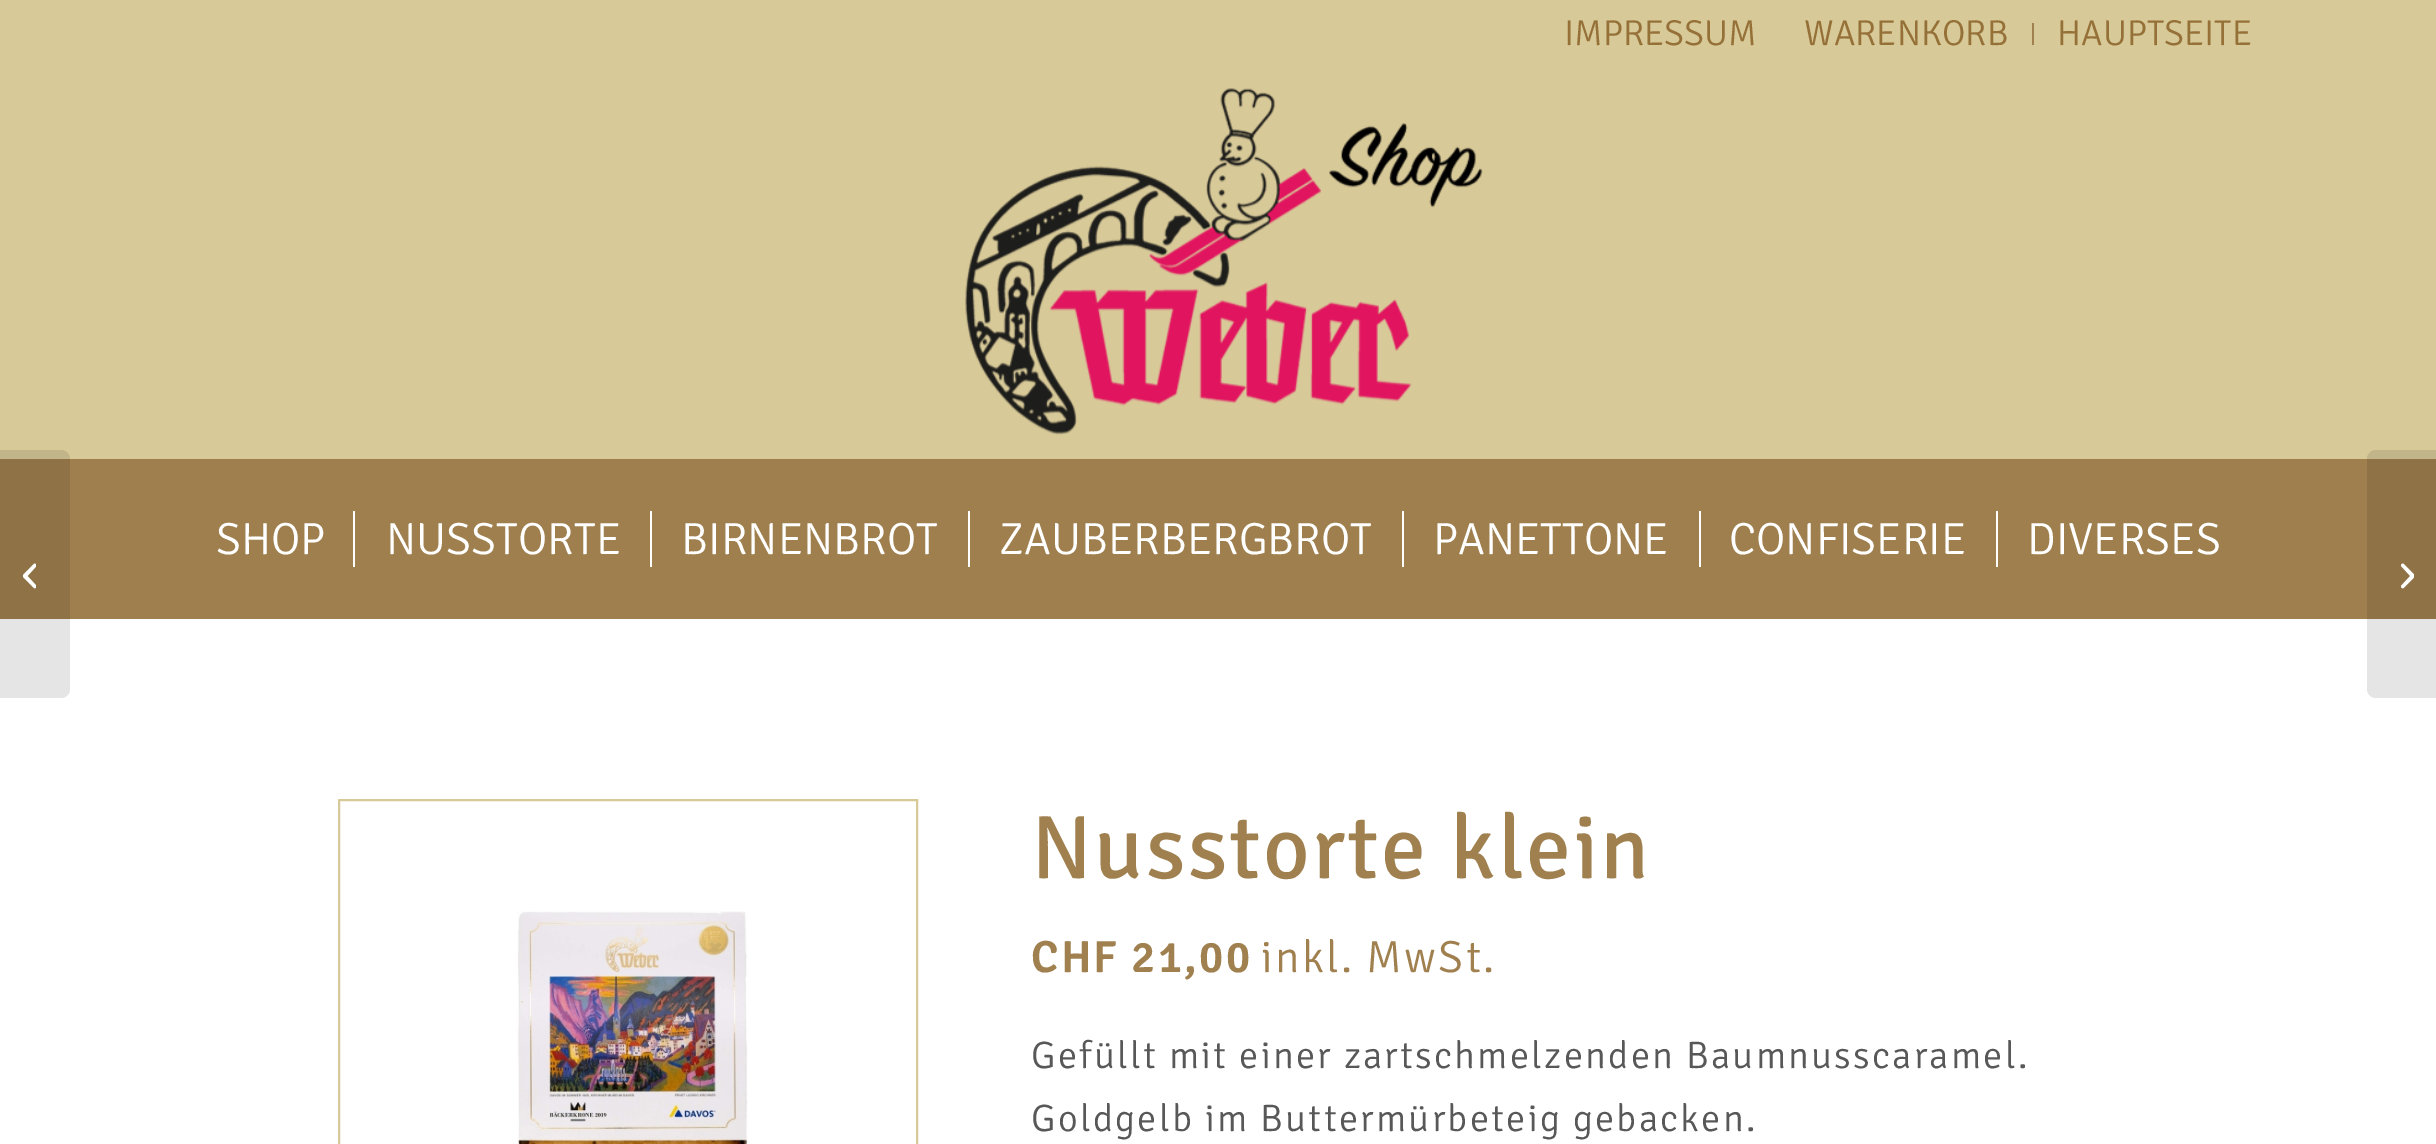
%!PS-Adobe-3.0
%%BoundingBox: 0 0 2436 1144
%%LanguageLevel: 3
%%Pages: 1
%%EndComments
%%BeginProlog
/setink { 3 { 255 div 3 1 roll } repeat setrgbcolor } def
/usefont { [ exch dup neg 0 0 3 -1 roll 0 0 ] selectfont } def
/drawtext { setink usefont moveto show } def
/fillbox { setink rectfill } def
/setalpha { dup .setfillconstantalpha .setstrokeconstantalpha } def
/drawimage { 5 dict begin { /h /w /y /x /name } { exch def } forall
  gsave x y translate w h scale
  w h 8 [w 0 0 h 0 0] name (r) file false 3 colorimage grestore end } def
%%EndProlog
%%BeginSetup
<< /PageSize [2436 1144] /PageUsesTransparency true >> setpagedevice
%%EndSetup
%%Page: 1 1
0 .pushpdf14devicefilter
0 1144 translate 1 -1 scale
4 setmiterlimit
0 0 2436 1144 255 255 255 fillbox
0 0 2436 459 216 201 152 fillbox
0 459 2436 160 159 127 77 fillbox
0.1 setalpha
0 0 0 setink
0 450 moveto 61 450 lineto 66 450 70 454 70 459 curveto 70 689 lineto 70 694 66 698 61 698 curveto 0 698 lineto closepath fill
1 setalpha
(assets/img1.rgb) 23 563 13 26 drawimage
(IMPRESSUM) 1564 45 /Signika-Light 36 149 113 56 drawtext
(WARENKORB) 1804 45 /Signika-Light 36 149 113 56 drawtext
2032 23 2 22 159 128 78 fillbox
(HAUPTSEITE) 2057 45 /Signika-Light 36 149 113 56 drawtext
(assets/img2.rgb) 965 88 518 347 drawimage
(SHOP) 216 554 /Signika-Light 45 255 255 255 drawtext
(NUSSTORTE) 386 554 /Signika-Light 45 255 255 255 drawtext
353 511 2 56 255 255 255 fillbox
(BIRNENBROT) 681 554 /Signika-Light 45 255 255 255 drawtext
650 511 2 56 255 255 255 fillbox
(ZAUBERBERGBROT) 999 554 /Signika-Light 45 255 255 255 drawtext
968 511 2 56 255 255 255 fillbox
(PANETTONE) 1433 554 /Signika-Light 45 255 255 255 drawtext
1402 511 2 56 255 255 255 fillbox
(CONFISERIE) 1729 554 /Signika-Light 45 255 255 255 drawtext
1699 511 2 56 255 255 255 fillbox
(DIVERSES) 2027 554 /Signika-Light 45 255 255 255 drawtext
1996 511 2 56 255 255 255 fillbox
0.1 setalpha
0 0 0 setink
2376 450 moveto 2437 450 lineto 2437 698 lineto 2376 698 lineto 2371 698 2367 694 2367 689 curveto 2367 459 lineto 2367 454 2371 450 2376 450 curveto closepath fill
1 setalpha
(assets/img3.rgb) 2401 563 13 26 drawimage
216 201 152 setink
2 setlinewidth
339 800 578 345 rectstroke
(assets/img4.rgb) 517 911 231 233 drawimage
/Signika-Regular 90 usefont
159 128 78 setink
1031 878 moveto 2.25 0 (Nusstorte klein) ashow
/Signika-SemiBold 45 usefont
1031 972 moveto 2.25 0 (CHF) ashow
1131 972 moveto 2.25 0 (21,00) ashow
/Signika-Light 45 usefont
1261 972 moveto 2.25 0 (inkl. MwSt.) ashow
/Signika-Light 38.25 usefont
88 88 88 setink
1031 1068 moveto 2.25 0 (Gefüllt mit einer zartschmelzenden Baumnusscaramel.) ashow
1031 1131 moveto 2.25 0 (Goldgelb im Buttermürbeteig gebacken.) ashow
.poppdf14devicefilter showpage
%%EOF
